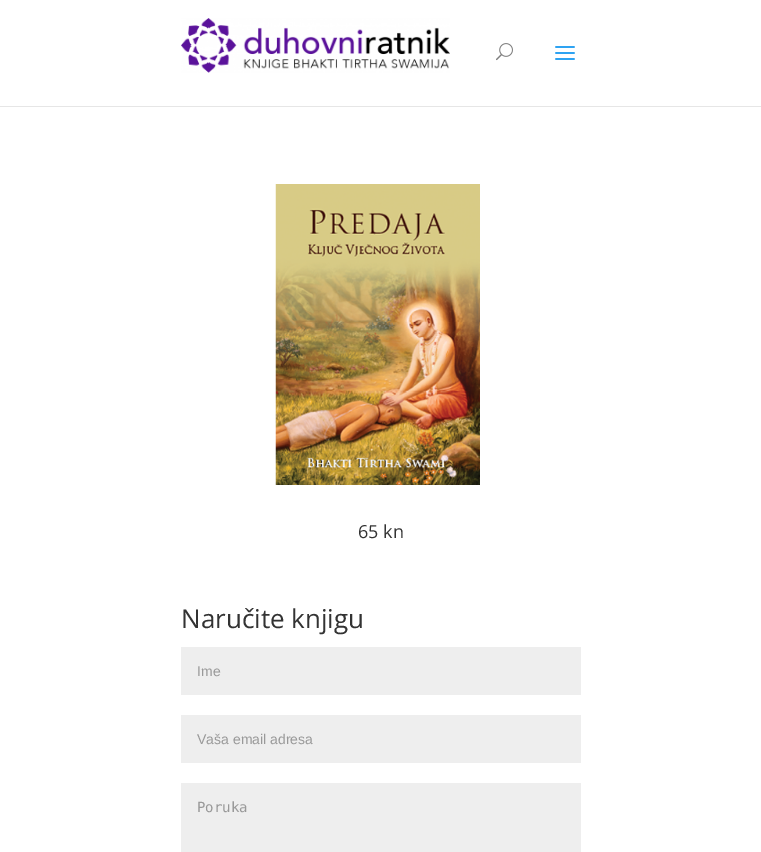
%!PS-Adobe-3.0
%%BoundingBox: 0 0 761 852
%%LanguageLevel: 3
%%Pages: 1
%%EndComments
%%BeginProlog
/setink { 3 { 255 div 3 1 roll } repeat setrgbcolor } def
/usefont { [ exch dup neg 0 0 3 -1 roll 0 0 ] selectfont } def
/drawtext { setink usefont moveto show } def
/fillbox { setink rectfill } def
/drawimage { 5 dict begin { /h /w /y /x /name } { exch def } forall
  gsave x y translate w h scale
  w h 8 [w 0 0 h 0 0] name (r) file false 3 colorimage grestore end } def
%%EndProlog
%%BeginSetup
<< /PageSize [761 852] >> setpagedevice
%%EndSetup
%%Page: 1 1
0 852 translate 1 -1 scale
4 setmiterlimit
0 0 761 852 255 255 255 fillbox
0 106 761 1 230 230 230 fillbox
(assets/img1.rgb) 181 18 269 55 drawimage
(assets/img2.rgb) 496 43 17 18 drawimage
(assets/img3.rgb) 555 46 20 14 drawimage
(assets/img4.rgb) 275 184 205 301 drawimage
(65 kn) 358 538 /OpenSans-Regular 18 51 51 51 drawtext
(Naručite knjigu) 181 628 /OpenSans-Regular 26 51 51 51 drawtext
181 647 400 48 238 238 238 fillbox
(Ime) 197 676 /LiberationSans-Regular 14 153 153 153 drawtext
181 715 400 48 238 238 238 fillbox
(Vaša email adresa) 197 744 /LiberationSans-Regular 14 153 153 153 drawtext
181 783 400 69 238 238 238 fillbox
(Poruka) 197 812 /DejaVuSansMono-Regular 14 153 153 153 drawtext
showpage
%%EOF
